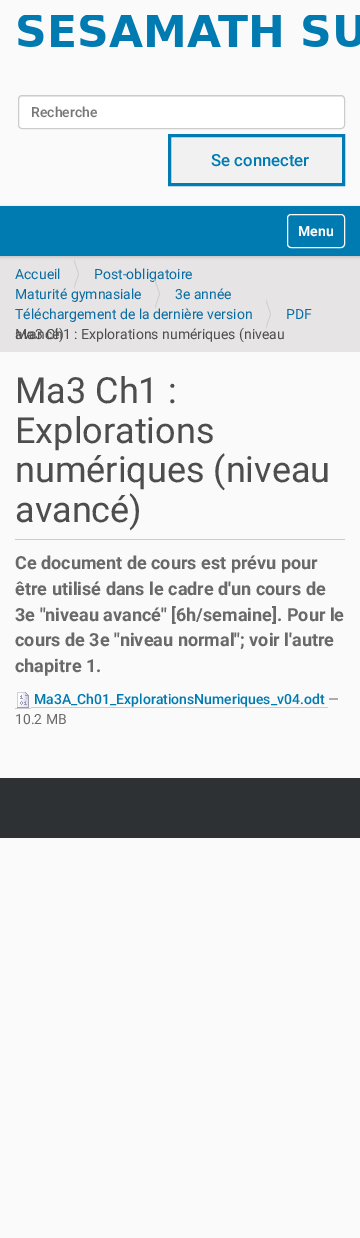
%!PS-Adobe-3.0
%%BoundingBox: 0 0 360 1238
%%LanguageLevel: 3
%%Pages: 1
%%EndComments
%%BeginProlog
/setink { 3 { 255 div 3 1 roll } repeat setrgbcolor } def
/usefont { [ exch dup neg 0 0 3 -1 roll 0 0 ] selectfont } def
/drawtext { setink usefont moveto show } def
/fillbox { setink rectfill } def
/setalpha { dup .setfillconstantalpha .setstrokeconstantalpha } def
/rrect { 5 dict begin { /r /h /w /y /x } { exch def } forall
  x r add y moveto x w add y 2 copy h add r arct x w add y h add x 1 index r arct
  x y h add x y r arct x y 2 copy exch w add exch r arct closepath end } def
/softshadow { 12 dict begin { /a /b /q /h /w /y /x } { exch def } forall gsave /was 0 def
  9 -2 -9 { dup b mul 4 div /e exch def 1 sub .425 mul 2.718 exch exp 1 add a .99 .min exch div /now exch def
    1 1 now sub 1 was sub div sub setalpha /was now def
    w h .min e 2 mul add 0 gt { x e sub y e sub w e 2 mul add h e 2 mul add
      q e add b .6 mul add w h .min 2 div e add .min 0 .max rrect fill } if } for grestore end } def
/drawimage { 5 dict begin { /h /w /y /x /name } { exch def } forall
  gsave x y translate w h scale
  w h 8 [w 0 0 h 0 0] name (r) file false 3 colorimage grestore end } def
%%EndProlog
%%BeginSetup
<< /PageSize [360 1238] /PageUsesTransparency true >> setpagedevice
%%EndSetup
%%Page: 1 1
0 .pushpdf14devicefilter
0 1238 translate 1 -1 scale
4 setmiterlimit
0 0 360 1238 250 250 250 fillbox
(assets/img1.rgb) 18 15 342 32 drawimage
255 255 255 setink
18 95 327 34 4 rrect fill
236 236 236 setink
22 97 moveto 341 97 lineto 343 97 344 98 344 100 curveto 344 98 343 96 341 96 curveto 22 96 lineto 20 96 19 98 19 100 curveto 19 98 20 97 22 97 curveto closepath fill
204 204 204 setink
18.5 95.5 326 33 3.5 rrect stroke
(Recherche) 31 117 /Roboto-Medium 14 119 119 119 drawtext
242 241 241 setink
169.5 135.5 moveto 343.5 135.5 lineto 343.5 184.5 lineto 169.5 184.5 lineto closepath gsave fill grestore
0 123 179 setink
3 setlinewidth
stroke
(Se connecter) 211 166 /Roboto-Medium 16.75 0 123 177 drawtext
0 256 360 96 230 228 228 fillbox
0 0 0 setink
0 207 360 50 0 1.5 0.17 softshadow
0 206 360 50 0 123 177 fillbox
255 255 255 setink
1 setlinewidth
287.5 214.5 57 33 3.5 rrect stroke
(Menu) 298 236 /Roboto-Bold 14 255 255 255 drawtext
(Accueil) 15 279 /Roboto-Regular 14 8 108 163 drawtext
204 204 204 setink
74 289 moveto 74 259 lineto 79 274 lineto closepath fill
230 228 228 setink
73 289 moveto 73 259 lineto 78 274 lineto closepath fill
(Post-obligatoire) 94 279 /Roboto-Regular 14 8 108 163 drawtext
(Maturité gymnasiale) 15 299 /Roboto-Regular 14 8 108 163 drawtext
204 204 204 setink
155 309 moveto 155 279 lineto 160 294 lineto closepath fill
230 228 228 setink
154 309 moveto 154 279 lineto 159 294 lineto closepath fill
(3e année) 175 299 /Roboto-Regular 14 8 108 163 drawtext
(Téléchargement de la dernière version) 15 319 /Roboto-Regular 14 8 108 163 drawtext
204 204 204 setink
266 329 moveto 266 299 lineto 271 314 lineto closepath fill
230 228 228 setink
265 329 moveto 265 299 lineto 270 314 lineto closepath fill
(PDF) 286 319 /Roboto-Regular 14 8 108 163 drawtext
(Ma3 Ch1 : Explorations numériques \(niveau) 15 339 /Roboto-Regular 14 77 77 77 drawtext
(avancé\)) 15 339 /Roboto-Regular 14 77 77 77 drawtext
15 539 330 1 204 204 204 fillbox
(Ma3 Ch1 :) 15 403 /Roboto-Regular 36 77 77 77 drawtext
(Explorations) 15 443 /Roboto-Regular 36 77 77 77 drawtext
(numériques \(niveau) 15 482 /Roboto-Regular 36 77 77 77 drawtext
(avancé\)) 15 522 /Roboto-Regular 36 77 77 77 drawtext
(Ce document de cours est prévu pour) 15 569 /Roboto-Bold 18 105 105 105 drawtext
(être utilisé dans le cadre d'un cours de) 15 595 /Roboto-Bold 18 105 105 105 drawtext
(3e "niveau avancé" [6h/semaine]. Pour le) 15 621 /Roboto-Bold 18 105 105 105 drawtext
(cours de 3e "niveau normal"; voir l'autre) 15 646 /Roboto-Bold 18 105 105 105 drawtext
(chapitre 1.) 15 672 /Roboto-Bold 18 105 105 105 drawtext
(assets/img2.rgb) 17 692 12 16 drawimage
(Ma3A_Ch01_ExplorationsNumeriques_v04.odt) 34 704 /Roboto-Medium 14 0 123 177 drawtext
15 708 16 1 204 204 204 fillbox
31 707 297 1 204 204 204 fillbox
(—) 328 704 /Roboto-Regular 14 105 105 105 drawtext
(10.2 MB) 15 724 /Roboto-Regular 14 105 105 105 drawtext
0 778 360 60 46 49 51 fillbox
.poppdf14devicefilter showpage
%%EOF
